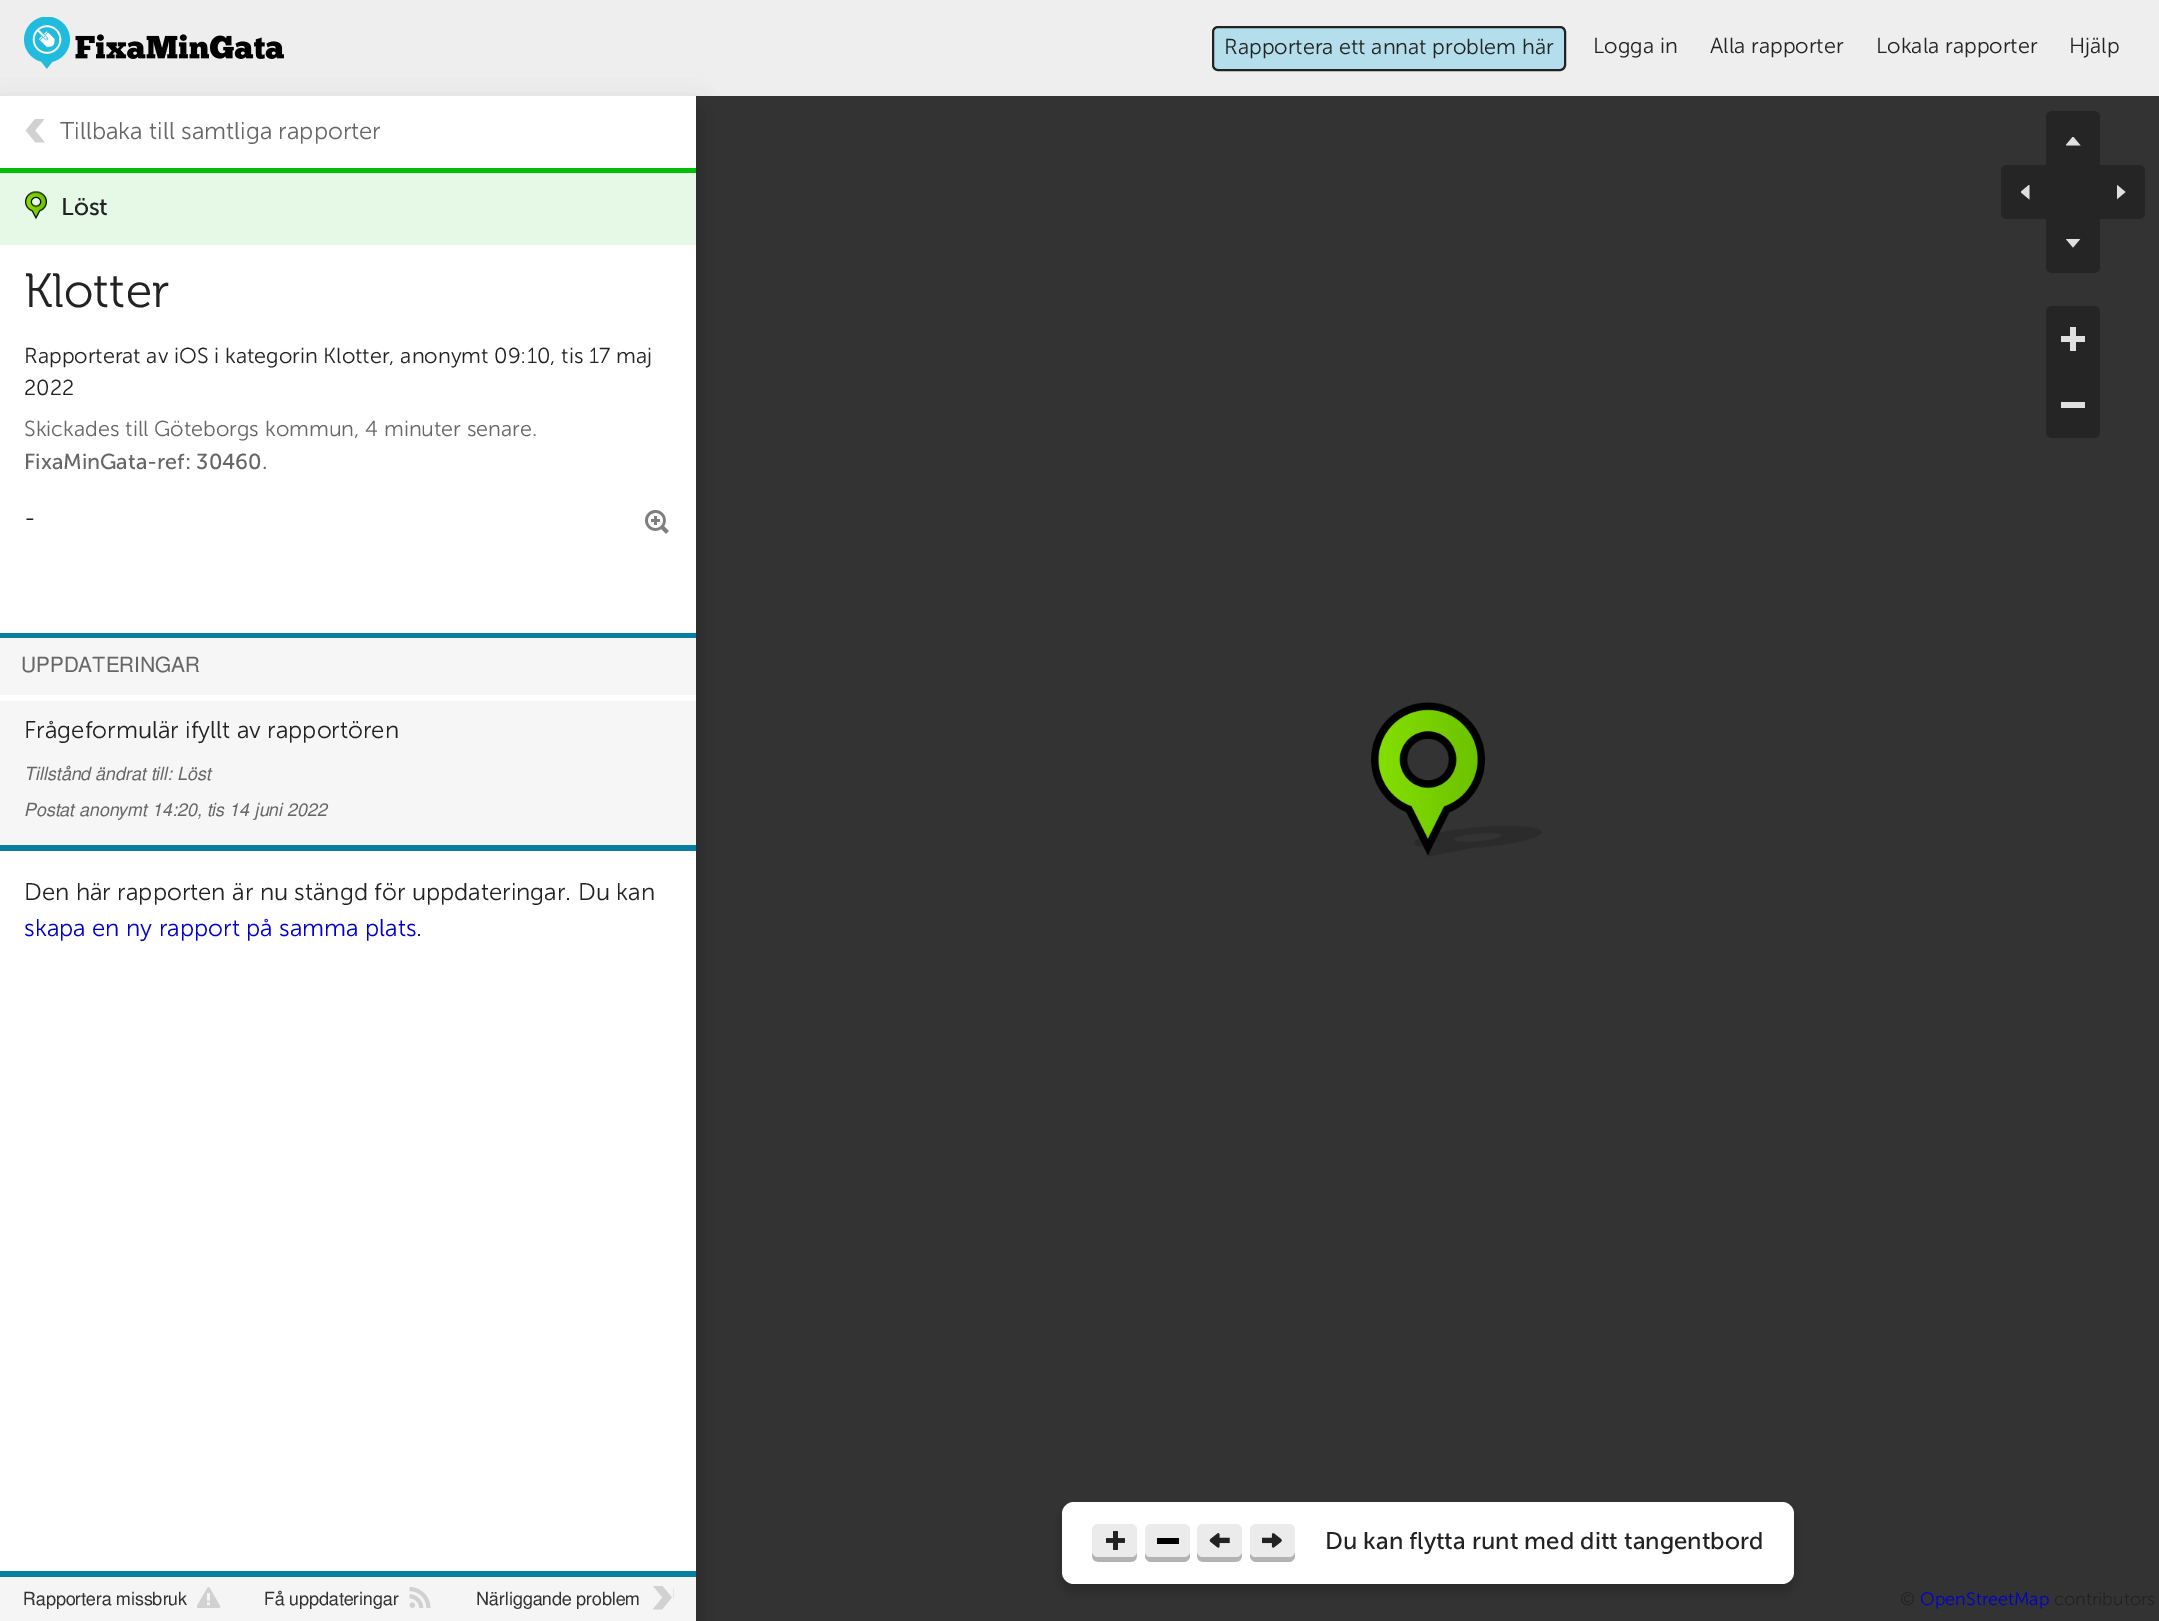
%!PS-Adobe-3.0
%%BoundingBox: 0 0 2159 1621
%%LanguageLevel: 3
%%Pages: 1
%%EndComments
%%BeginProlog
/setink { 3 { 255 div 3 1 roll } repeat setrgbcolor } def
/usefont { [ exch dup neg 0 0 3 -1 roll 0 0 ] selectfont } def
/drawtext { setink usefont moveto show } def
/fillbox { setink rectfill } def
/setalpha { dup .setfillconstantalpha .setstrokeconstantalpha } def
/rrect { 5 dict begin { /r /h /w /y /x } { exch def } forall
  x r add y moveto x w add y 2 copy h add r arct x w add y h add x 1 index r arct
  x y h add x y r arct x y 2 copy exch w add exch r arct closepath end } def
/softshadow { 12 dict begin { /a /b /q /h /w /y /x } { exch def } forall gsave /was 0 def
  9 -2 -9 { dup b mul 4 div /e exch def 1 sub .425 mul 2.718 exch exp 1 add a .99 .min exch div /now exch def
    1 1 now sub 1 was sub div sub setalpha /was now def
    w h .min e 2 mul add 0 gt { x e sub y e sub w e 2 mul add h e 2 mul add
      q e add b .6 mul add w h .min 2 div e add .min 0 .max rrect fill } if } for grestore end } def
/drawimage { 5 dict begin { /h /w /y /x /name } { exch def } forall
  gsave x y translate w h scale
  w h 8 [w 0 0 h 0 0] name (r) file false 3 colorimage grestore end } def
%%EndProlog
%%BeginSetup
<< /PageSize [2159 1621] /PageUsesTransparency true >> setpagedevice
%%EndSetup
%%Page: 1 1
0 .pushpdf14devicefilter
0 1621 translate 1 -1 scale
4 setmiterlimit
0 0 2159 1621 238 238 238 fillbox
696 96 1463 1525 51 51 51 fillbox
0 0 0 setink
0 111 696 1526 0 15 0.2 softshadow
(assets/img1.rgb) 24 17 260 52 drawimage
181 222 236 setink
1213 27 352 43 5 rrect gsave fill grestore
34 34 34 setink
2 setlinewidth
stroke
(Rapportera ett annat problem här) 1224 54 /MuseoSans-Light 21.6 34 34 34 drawtext
(Logga in) 1593 53 /MuseoSans-Light 21.6 34 34 34 drawtext
(Alla rapporter) 1710 53 /MuseoSans-Light 21.6 34 34 34 drawtext
(Lokala rapporter) 1876 53 /MuseoSans-Light 21.6 34 34 34 drawtext
(Hjälp) 2069 53 /MuseoSans-Light 21.6 34 34 34 drawtext
0 96 696 1475 255 255 255 fillbox
(assets/img2.rgb) 25 119 20 24 drawimage
(Tillbaka till samtliga rapporter) 60 139 /MuseoSans-Light 24 102 102 102 drawtext
0 173 696 72 230 248 230 fillbox
0 168 696 5 0 189 8 fillbox
(assets/img3.rgb) 25 191 22 29 drawimage
(Löst) 61 215 /MuseoSans-Regular 24 34 34 34 drawtext
(Klotter) 24 307 /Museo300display-Light 48 34 34 34 drawtext
(Rapporterat av iOS i kategorin Klotter, anonymt 09:10, tis 17 maj) 24 363 /MuseoSans-Light 21.6 34 34 34 drawtext
(2022) 24 395 /MuseoSans-Light 21.6 34 34 34 drawtext
(Skickades till Göteborgs kommun, 4 minuter senare.) 24 436 /MuseoSans-Light 21.6 102 102 102 drawtext
(FixaMinGata-ref: 30460.) 24 469 /MuseoSans-Regular 21.6 102 102 102 drawtext
(-) 24 526 /MuseoSans-Light 24 34 34 34 drawtext
(assets/img4.rgb) 645 510 24 24 drawimage
0 638 696 57 246 246 246 fillbox
0 633 696 5 8 127 160 fillbox
(UPPDATERINGAR) 21 672 /FreeSans-Regular 21 102 102 102 drawtext
0 845 696 6 8 127 160 fillbox
0 701 696 144 246 246 246 fillbox
(Frågeformulär ifyllt av rapportören) 24 738 /MuseoSans-Light 24 34 34 34 drawtext
(Tillstånd ändrat till: Löst) 24 780 /FreeSans-Italic 18 102 102 102 drawtext
(Postat anonymt 14:20, tis 14 juni 2022) 24 816 /FreeSans-Italic 18 102 102 102 drawtext
(Den här rapporten är nu stängd för uppdateringar. Du kan) 24 900 /MuseoSans-Light 24 34 34 34 drawtext
(skapa en ny rapport på samma plats) 24 936 /MuseoSans-Light 24 0 0 204 drawtext
(.) 416 936 /MuseoSans-Light 24 34 34 34 drawtext
0 1571 696 6 8 127 160 fillbox
0 1577 696 44 245 245 245 fillbox
(Rapportera missbruk) 23 1605 /FreeSans-Regular 18 51 51 51 drawtext
(assets/img5.rgb) 197 1587 24 21 drawimage
(Få uppdateringar) 264 1605 /FreeSans-Regular 18 51 51 51 drawtext
(assets/img6.rgb) 409 1587 22 21 drawimage
(Närliggande problem) 476 1605 /FreeSans-Regular 18 51 51 51 drawtext
(assets/img7.rgb) 652 1586 22 24 drawimage
0 0 0 setink
1062 1509 732 83 12 7.5 0.2 softshadow
255 255 255 setink
1062 1502 732 82 12 rrect fill
179 179 179 setink
1092 1551 moveto 1092 1561 1093 1562 1104 1562 curveto 1126 1562 lineto 1136 1562 1137 1561 1137 1551 curveto 1137 1554 1134 1557 1131 1557 curveto 1098 1557 lineto 1095 1557 1092 1554 1092 1551 curveto closepath fill
236 235 235 setink
1092 1524 45 33 6 rrect fill
(assets/img8.rgb) 1106 1531 19 19 drawimage
179 179 179 setink
1145 1553 moveto 1145 1556 lineto 1145 1559 1148 1562 1151 1562 curveto 1184 1562 lineto 1187 1562 1190 1559 1190 1556 curveto 1190 1535 lineto 1190 1533 lineto 1190 1551 lineto 1190 1554 1187 1557 1184 1557 curveto 1150 1557 lineto 1148 1557 1146 1556 1145 1553 curveto closepath fill
236 235 235 setink
1145 1524 45 33 6 rrect fill
1157 1538 22 6 0 0 0 fillbox
179 179 179 setink
1197 1551 moveto 1197 1561 1198 1562 1208 1562 curveto 1230 1562 lineto 1241 1562 1242 1561 1242 1551 curveto 1242 1554 1239 1557 1236 1557 curveto 1203 1557 lineto 1200 1557 1197 1554 1197 1551 curveto closepath fill
236 235 235 setink
1197 1524 45 33 6 rrect fill
(assets/img9.rgb) 1209 1533 21 15 drawimage
179 179 179 setink
1250 1553 moveto 1250 1556 lineto 1250 1559 1253 1562 1256 1562 curveto 1289 1562 lineto 1292 1562 1295 1559 1295 1556 curveto 1295 1535 lineto 1294 1533 lineto 1294 1551 lineto 1294 1554 1292 1557 1288 1557 curveto 1256 1557 lineto 1253 1557 1251 1556 1250 1553 curveto closepath fill
236 235 235 setink
1250 1524 45 33 6 rrect fill
(assets/img10.rgb) 1262 1533 20 15 drawimage
(Du kan flytta runt med ditt tangentbord) 1325 1549 /MuseoSans-Regular 24 34 34 34 drawtext
37 37 37 setink
2052 111 moveto 2094 111 lineto 2097.5 111 2100 113.5 2100 117 curveto 2100 165 lineto 2046 165 lineto 2046 117 lineto 2046 113.5 2048.5 111 2052 111 curveto closepath fill
gsave
2066 137 15 9 rectclip
224 224 224 setink
2073 136.5 moveto 2080.5 145.5 lineto 2065.5 145.5 lineto closepath eofill
grestore
2007 165 moveto 2073 165 lineto 2073 219 lineto 2007 219 lineto 2003.5 219 2001 216.5 2001 213 curveto 2001 171 lineto 2001 167.5 2003.5 165 2007 165 curveto closepath fill
gsave
2021 185 9 15 rectclip
224 224 224 setink
2020.5 192 moveto 2029.5 184.5 lineto 2029.5 199.5 lineto closepath eofill
grestore
2073 165 moveto 2139 165 lineto 2142.5 165 2145 167.5 2145 171 curveto 2145 213 lineto 2145 216.5 2142.5 219 2139 219 curveto 2073 219 lineto closepath fill
gsave
2117 185 9 15 rectclip
224 224 224 setink
2125.5 192 moveto 2116.5 199.5 lineto 2116.5 184.5 lineto closepath eofill
grestore
2046 219 moveto 2100 219 lineto 2100 267 lineto 2100 270.5 2097.5 273 2094 273 curveto 2052 273 lineto 2048.5 273 2046 270.5 2046 267 curveto closepath fill
gsave
2066 239 15 9 rectclip
224 224 224 setink
2073 247.5 moveto 2065.5 238.5 lineto 2080.5 238.5 lineto closepath eofill
grestore
2052 306 moveto 2094 306 lineto 2097.5 306 2100 308.5 2100 312 curveto 2100 372 lineto 2046 372 lineto 2046 312 lineto 2046 308.5 2048.5 306 2052 306 curveto closepath fill
2070 327 6 24 224 224 224 fillbox
2061 336 24 6 224 224 224 fillbox
37 37 37 setink
2046 372 moveto 2100 372 lineto 2100 432 lineto 2100 435.5 2097.5 438 2094 438 curveto 2052 438 lineto 2048.5 438 2046 435.5 2046 432 curveto closepath fill
2061 402 24 6 224 224 224 fillbox
(assets/img11.rgb) 1371 702 171 155 drawimage
(©) 1900 1605 /MuseoSans-Light 18 34 34 34 drawtext
(OpenStreetMap) 1920 1605 /MuseoSans-Light 18 0 0 204 drawtext
(contributors) 2054 1605 /MuseoSans-Light 18 34 34 34 drawtext
.poppdf14devicefilter showpage
%%EOF
